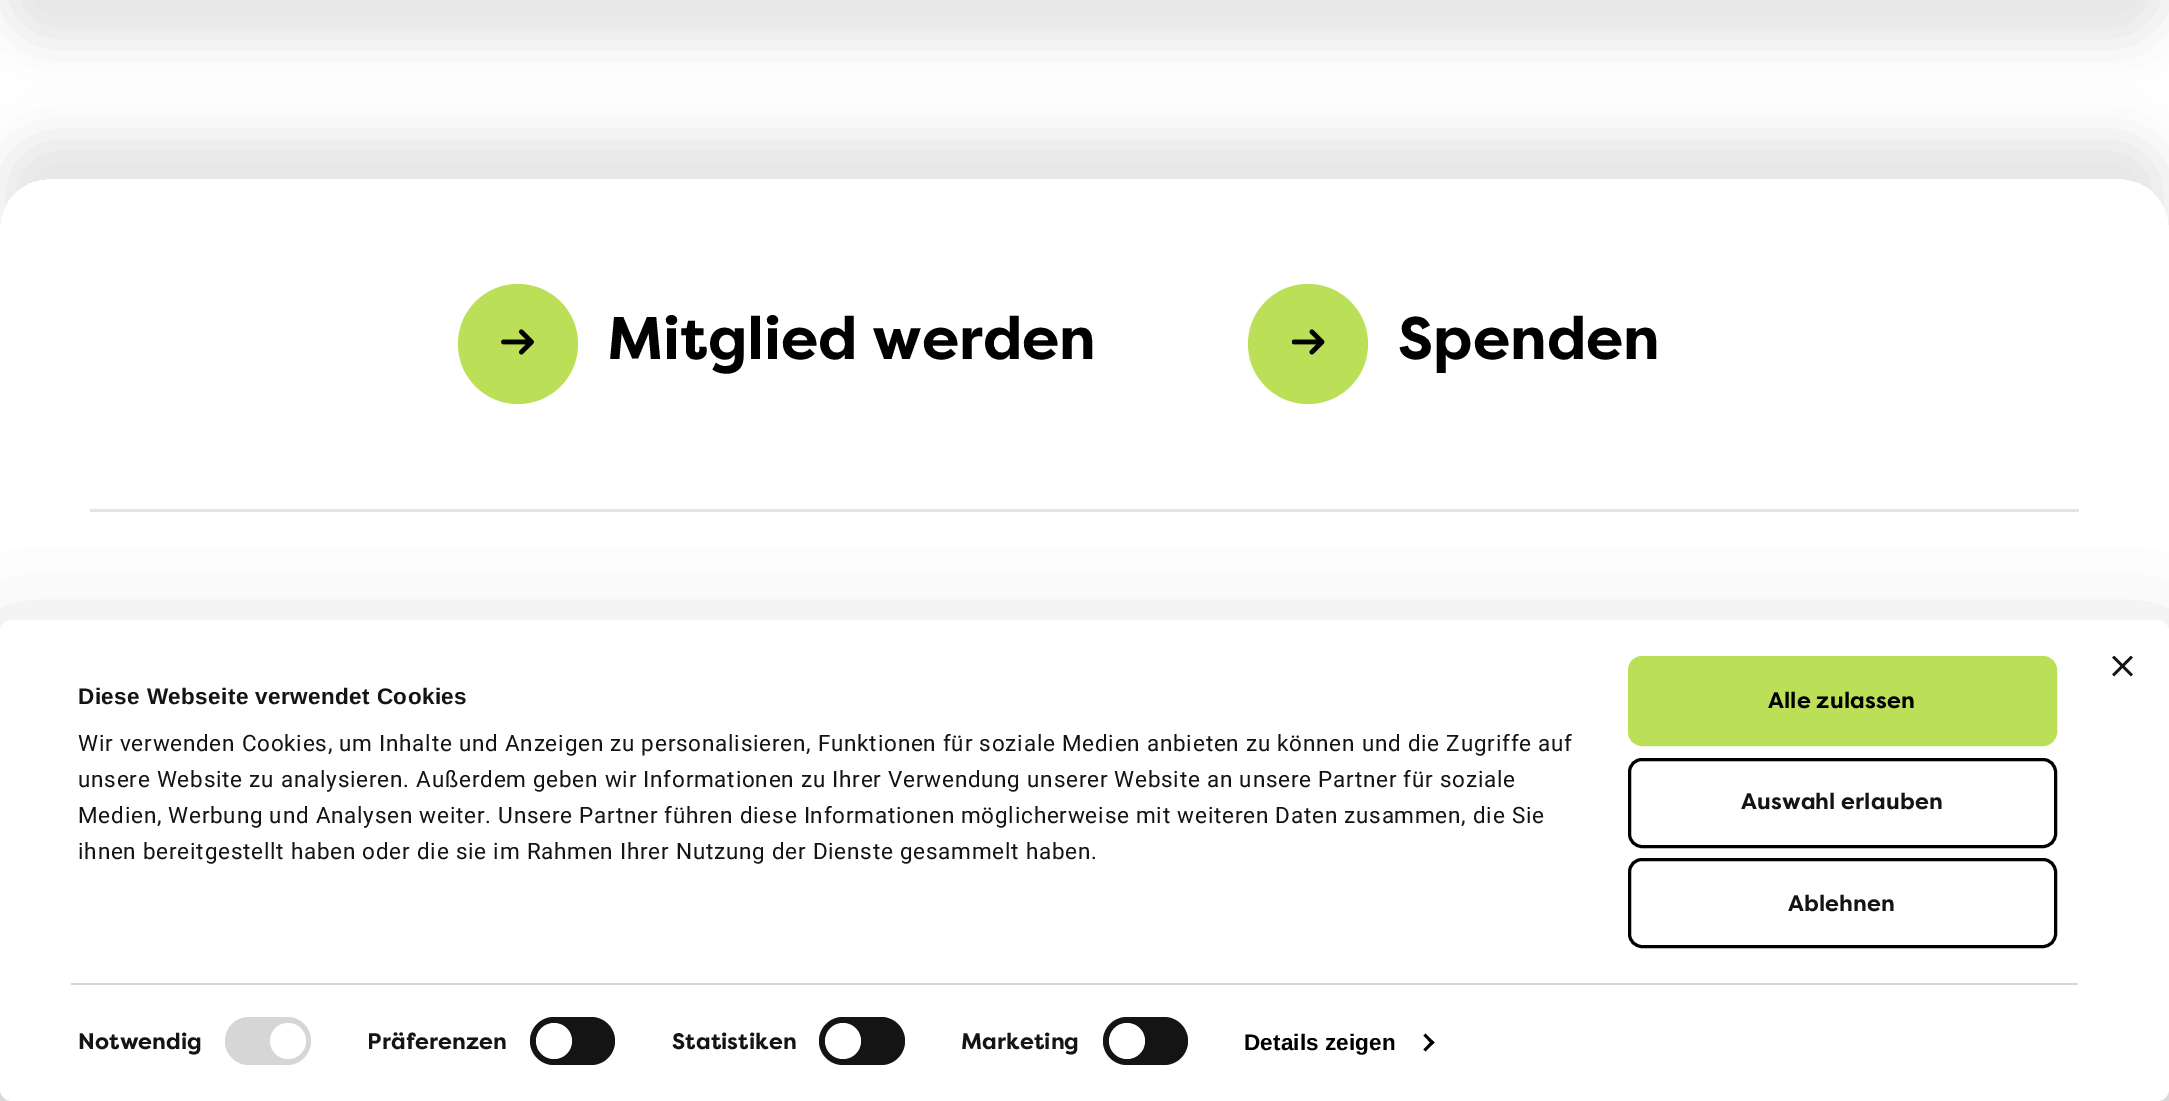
%!PS-Adobe-3.0
%%BoundingBox: 0 0 2169 1101
%%LanguageLevel: 3
%%Pages: 1
%%EndComments
%%BeginProlog
/setink { 3 { 255 div 3 1 roll } repeat setrgbcolor } def
/usefont { [ exch dup neg 0 0 3 -1 roll 0 0 ] selectfont } def
/drawtext { setink usefont moveto show } def
/fillbox { setink rectfill } def
/setalpha { dup .setfillconstantalpha .setstrokeconstantalpha } def
/disc { newpath 0 360 arc closepath } def
/rrect { 5 dict begin { /r /h /w /y /x } { exch def } forall
  x r add y moveto x w add y 2 copy h add r arct x w add y h add x 1 index r arct
  x y h add x y r arct x y 2 copy exch w add exch r arct closepath end } def
/softshadow { 12 dict begin { /a /b /q /h /w /y /x } { exch def } forall gsave /was 0 def
  9 -2 -9 { dup b mul 4 div /e exch def 1 sub .425 mul 2.718 exch exp 1 add a .99 .min exch div /now exch def
    1 1 now sub 1 was sub div sub setalpha /was now def
    w h .min e 2 mul add 0 gt { x e sub y e sub w e 2 mul add h e 2 mul add
      q e add b .6 mul add w h .min 2 div e add .min 0 .max rrect fill } if } for grestore end } def
/drawimage { 5 dict begin { /h /w /y /x /name } { exch def } forall
  gsave x y translate w h scale
  w h 8 [w 0 0 h 0 0] name (r) file false 3 colorimage grestore end } def
%%EndProlog
%%BeginSetup
<< /PageSize [2169 1101] /PageUsesTransparency true >> setpagedevice
%%EndSetup
%%Page: 1 1
0 .pushpdf14devicefilter
0 1101 translate 1 -1 scale
4 setmiterlimit
0 0 2169 1101 255 255 255 fillbox
0 0 0 setink
0 -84 2169 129 48 22.5 0.09 softshadow
gsave
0 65 moveto 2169 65 lineto 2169 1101 lineto 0 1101 lineto closepath 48 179 moveto 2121 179 lineto 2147.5 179 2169 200.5 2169 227 curveto 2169 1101 lineto 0 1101 lineto 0 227 lineto 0 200.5 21.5 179 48 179 curveto closepath eoclip newpath
0 134 2169 922 48 22.5 0.09 softshadow
grestore
90 509 1989 3 228 228 228 fillbox
188 223 88 setink
518 344 60 disc fill
(assets/img1.rgb) 501 329 33 26 drawimage
(Mitglied werden) 607 359 /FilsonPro-Bold 60 0 0 0 drawtext
188 223 88 setink
1308 344 60 disc fill
(assets/img2.rgb) 1292 329 33 26 drawimage
(Spenden) 1398 359 /FilsonPro-Bold 60 0 0 0 drawtext
0 665 2169 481 12 52.5 0.3 softshadow
255 255 255 setink
0 620 2169 481 12 rrect fill
(assets/img3.rgb) 2112 656 21 21 drawimage
/LiberationSans-Bold 22.5 usefont
20 20 20 setink
78 704 moveto 0.4 0 (Diese Webseite verwendet Cookies) ashow
/Heebo-Regular 22.5 usefont
78 751 moveto 0.75 0 (Wir verwenden Cookies, um Inhalte und Anzeigen zu personalisieren, Funktionen für soziale Medien anbieten zu können und die Zugriffe auf) ashow
78 787 moveto 0.75 0 (unsere Website zu analysieren. Außerdem geben wir Informationen zu Ihrer Verwendung unserer Website an unsere Partner für soziale) ashow
78 823 moveto 0.75 0 (Medien, Werbung und Analysen weiter. Unsere Partner führen diese Informationen möglicherweise mit weiteren Daten zusammen, die Sie) ashow
78 859 moveto 0.75 0 (ihnen bereitgestellt haben oder die sie im Rahmen Ihrer Nutzung der Dienste gesammelt haben.) ashow
71 983 2007 2 214 214 214 fillbox
/FilsonPro-Bold 22.5 usefont
20 20 20 setink
78 1049 moveto 0.1 0 (Notwendig) ashow
214 214 214 setink
225 1017 86 48 24 rrect fill
255 255 255 setink
288 1041 18 disc fill
20 20 20 setink
367 1049 moveto 0.1 0 (Präferenzen) ashow
530 1017 85 48 24 rrect fill
255 255 255 setink
554 1041 18 disc fill
20 20 20 setink
672 1049 moveto 0.1 0 (Statistiken) ashow
819 1017 86 48 24 rrect fill
255 255 255 setink
843 1041 18 disc fill
20 20 20 setink
961 1049 moveto 0.1 0 (Marketing) ashow
1103 1017 85 48 24 rrect fill
255 255 255 setink
1127 1041 18 disc fill
/LiberationSans-Bold 22.5 usefont
0 0 0 setink
1244 1050 moveto 0.1 0 (Details zeigen) ashow
1425.5 1033.5 moveto 1434.5 1042.5 lineto 1432 1044.5 lineto 1423.5 1035.5 lineto closepath fill
1432 1040.5 moveto 1434.5 1042.5 lineto 1425.5 1051.5 lineto 1423.5 1049.5 lineto closepath fill
188 223 88 setink
1629.5 657.5 426 87 12.5 rrect gsave fill grestore
3 setlinewidth
stroke
/FilsonPro-Bold 22.5 usefont
0 0 0 setink
1768 708 moveto 0.1 0 (Alle zulassen) ashow
1629.5 759.5 426 87 12.5 rrect stroke
20 20 20 setink
1741 809 moveto 0.1 0 (Auswahl erlauben) ashow
0 0 0 setink
1629.5 859.5 426 87 12.5 rrect stroke
20 20 20 setink
1788 911 moveto 0.1 0 (Ablehnen) ashow
.poppdf14devicefilter showpage
%%EOF
